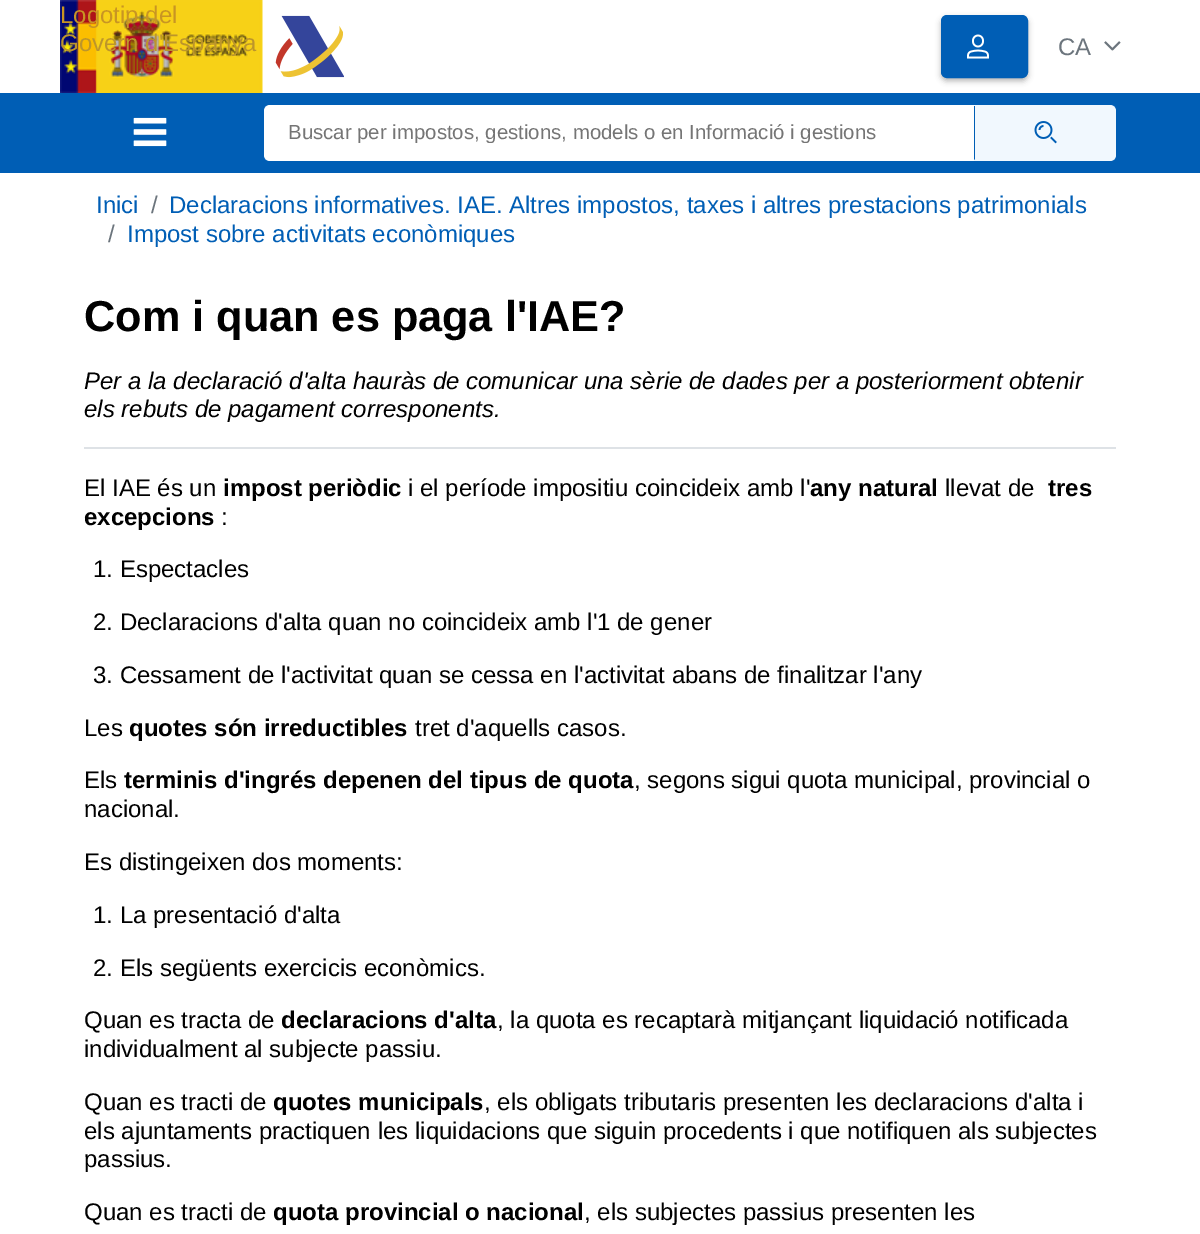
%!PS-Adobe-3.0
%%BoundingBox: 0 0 1200 1234
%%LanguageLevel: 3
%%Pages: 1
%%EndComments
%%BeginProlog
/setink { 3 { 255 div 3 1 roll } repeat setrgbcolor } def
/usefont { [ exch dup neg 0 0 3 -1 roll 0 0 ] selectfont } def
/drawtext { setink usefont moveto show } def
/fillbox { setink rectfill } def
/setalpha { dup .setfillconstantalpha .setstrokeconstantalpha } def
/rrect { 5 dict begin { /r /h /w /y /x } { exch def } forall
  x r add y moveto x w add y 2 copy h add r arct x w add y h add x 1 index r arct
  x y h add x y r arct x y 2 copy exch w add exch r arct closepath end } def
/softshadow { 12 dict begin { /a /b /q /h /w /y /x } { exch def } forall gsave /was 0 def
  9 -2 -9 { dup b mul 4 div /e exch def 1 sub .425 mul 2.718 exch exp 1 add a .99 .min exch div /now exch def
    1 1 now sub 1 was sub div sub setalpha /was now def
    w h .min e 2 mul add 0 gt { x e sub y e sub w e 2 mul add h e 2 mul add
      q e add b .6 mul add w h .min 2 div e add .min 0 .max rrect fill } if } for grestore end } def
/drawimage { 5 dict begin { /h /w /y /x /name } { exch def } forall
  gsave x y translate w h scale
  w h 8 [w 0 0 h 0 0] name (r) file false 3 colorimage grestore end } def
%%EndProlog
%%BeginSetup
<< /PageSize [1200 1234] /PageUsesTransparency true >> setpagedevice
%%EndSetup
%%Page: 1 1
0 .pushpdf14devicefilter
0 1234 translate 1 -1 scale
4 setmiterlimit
0 0 1200 1234 255 255 255 fillbox
(assets/img1.rgb) 60 0 203 93 drawimage
(Logotip del) 60 23 /LiberationSans-Regular 24 200 149 35 drawtext
(Govern d'Espanya) 60 51 /LiberationSans-Regular 24 188 149 43 drawtext
(assets/img2.rgb) 275 15 69 63 drawimage
0 0 0 setink
941 18 87 63 6 3 0.3 softshadow
0 94 181 setink
942 16 85 61 5 rrect gsave fill grestore
2 setlinewidth
stroke
(assets/img3.rgb) 967 34 22 25 drawimage
(CA) 1058 55 /LiberationSans-Regular 24 108 117 125 drawtext
(assets/img4.rgb) 1104 41 17 10 drawimage
0 93 1200 80 0 94 181 fillbox
(assets/img5.rgb) 133 117 34 30 drawimage
255 255 255 setink
270 105 moveto 975 105 lineto 975 161 lineto 270 161 lineto 266.5 161 264 158.5 264 155 curveto 264 111 lineto 264 107.5 266.5 105 270 105 curveto closepath fill
gsave
288 120 666 23 rectclip
(Buscar per impostos, gestions, models o en Informació i gestions) 288 139 /LiberationSans-Regular 20.4 117 117 117 drawtext
grestore
241 248 254 setink
974 105 moveto 1110 105 lineto 1113.5 105 1116 107.5 1116 111 curveto 1116 155 lineto 1116 158.5 1113.5 161 1110 161 curveto 974 161 lineto closepath fill
0 94 181 setink
974 106 moveto 974 160 lineto 975 159 lineto 975 106 lineto closepath fill
(assets/img6.rgb) 1034 121 23 23 drawimage
(Inici) 96 213 /LiberationSans-Regular 24 0 94 181 drawtext
(/) 151 213 /LiberationSans-Regular 24 108 117 125 drawtext
(Declaracions informatives. IAE. Altres impostos, taxes i altres prestacions patrimonials) 169 213 /LiberationSans-Regular 24 0 94 181 drawtext
(/) 108 242 /LiberationSans-Regular 24 108 117 125 drawtext
(Impost sobre activitats econòmiques) 127 242 /LiberationSans-Regular 24 0 94 181 drawtext
(Com i quan es paga l'IAE?) 84 331 /LiberationSans-Bold 43.25 0 0 0 drawtext
84 447 1032 2 222 226 230 fillbox
(Per a la declaració d'alta hauràs de comunicar una sèrie de dades per a posteriorment obtenir) 84 389 /LiberationSans-Italic 24 0 0 0 drawtext
(els rebuts de pagament corresponents.) 84 417 /LiberationSans-Italic 24 0 0 0 drawtext
(El IAE és un) 84 496 /LiberationSans-Regular 24 0 0 0 drawtext
(impost periòdic) 223 496 /LiberationSans-Bold 24 0 0 0 drawtext
(i el període impositiu coincideix amb l') 408 496 /LiberationSans-Regular 24 0 0 0 drawtext
(any natural) 810 496 /LiberationSans-Bold 24 0 0 0 drawtext
(llevat de) 945 496 /LiberationSans-Regular 24 0 0 0 drawtext
(tres) 1048 496 /LiberationSans-Bold 24 0 0 0 drawtext
(excepcions) 84 525 /LiberationSans-Bold 24 0 0 0 drawtext
(:) 221 525 /LiberationSans-Regular 24 0 0 0 drawtext
(1. Espectacles) 93 577 /LiberationSans-Regular 24 0 0 0 drawtext
(2. Declaracions d'alta quan no coincideix amb l'1 de gener) 93 630 /LiberationSans-Regular 24 0 0 0 drawtext
(3. Cessament de l'activitat quan se cessa en l'activitat abans de finalitzar l'any) 93 683 /LiberationSans-Regular 24 0 0 0 drawtext
(Les) 84 736 /LiberationSans-Regular 24 0 0 0 drawtext
(quotes són irreductibles) 129 736 /LiberationSans-Bold 24 0 0 0 drawtext
(tret d'aquells casos.) 415 736 /LiberationSans-Regular 24 0 0 0 drawtext
(Els) 84 788 /LiberationSans-Regular 24 0 0 0 drawtext
(terminis d'ingrés depenen del tipus de quota) 124 788 /LiberationSans-Bold 24 0 0 0 drawtext
(, segons sigui quota municipal, provincial o) 634 788 /LiberationSans-Regular 24 0 0 0 drawtext
(nacional.) 84 817 /LiberationSans-Regular 24 0 0 0 drawtext
(Es distingeixen dos moments:) 84 870 /LiberationSans-Regular 24 0 0 0 drawtext
(1. La presentació d'alta) 93 923 /LiberationSans-Regular 24 0 0 0 drawtext
(2. Els següents exercicis econòmics.) 93 976 /LiberationSans-Regular 24 0 0 0 drawtext
(Quan es tracta de) 84 1028 /LiberationSans-Regular 24 0 0 0 drawtext
(declaracions d'alta) 281 1028 /LiberationSans-Bold 24 0 0 0 drawtext
(, la quota es recaptarà mitjançant liquidació notificada) 497 1028 /LiberationSans-Regular 24 0 0 0 drawtext
(individualment al subjecte passiu.) 84 1057 /LiberationSans-Regular 24 0 0 0 drawtext
(Quan es tracti de) 84 1110 /LiberationSans-Regular 24 0 0 0 drawtext
(quotes municipals) 273 1110 /LiberationSans-Bold 24 0 0 0 drawtext
(, els obligats tributaris presenten les declaracions d'alta i) 484 1110 /LiberationSans-Regular 24 0 0 0 drawtext
(els ajuntaments practiquen les liquidacions que siguin procedents i que notifiquen als subjectes) 84 1139 /LiberationSans-Regular 24 0 0 0 drawtext
(passius.) 84 1167 /LiberationSans-Regular 24 0 0 0 drawtext
(Quan es tracti de) 84 1220 /LiberationSans-Regular 24 0 0 0 drawtext
(quota provincial o nacional) 273 1220 /LiberationSans-Bold 24 0 0 0 drawtext
(, els subjectes passius presenten les) 584 1220 /LiberationSans-Regular 24 0 0 0 drawtext
.poppdf14devicefilter showpage
%%EOF
